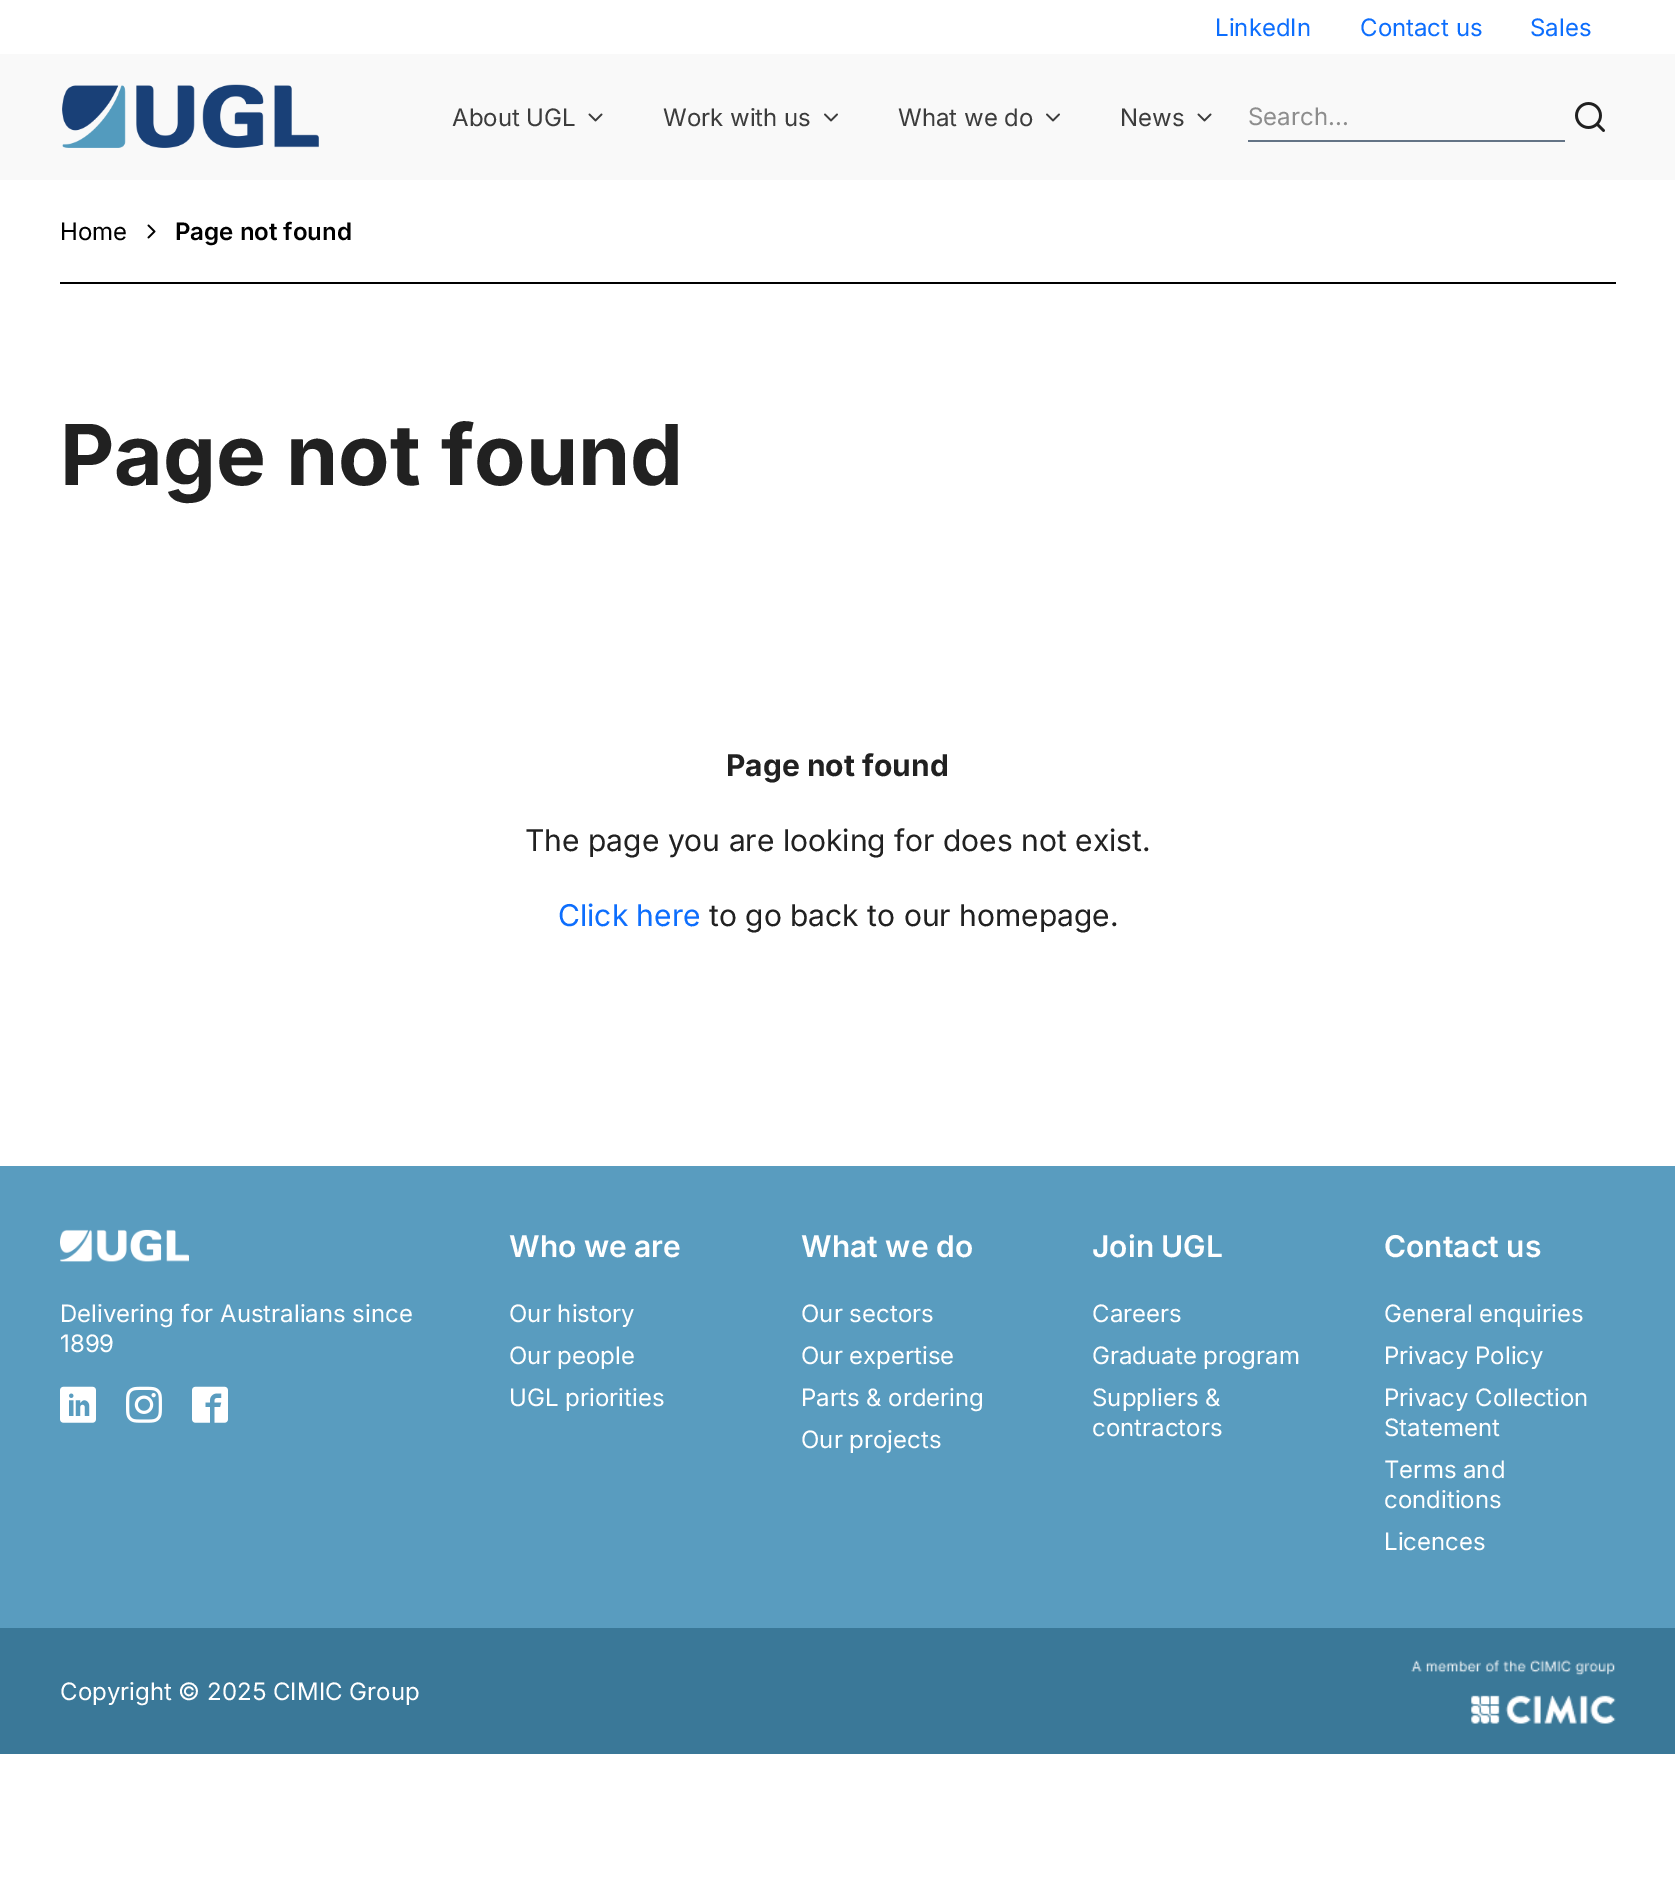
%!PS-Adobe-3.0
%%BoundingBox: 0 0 1675 1893
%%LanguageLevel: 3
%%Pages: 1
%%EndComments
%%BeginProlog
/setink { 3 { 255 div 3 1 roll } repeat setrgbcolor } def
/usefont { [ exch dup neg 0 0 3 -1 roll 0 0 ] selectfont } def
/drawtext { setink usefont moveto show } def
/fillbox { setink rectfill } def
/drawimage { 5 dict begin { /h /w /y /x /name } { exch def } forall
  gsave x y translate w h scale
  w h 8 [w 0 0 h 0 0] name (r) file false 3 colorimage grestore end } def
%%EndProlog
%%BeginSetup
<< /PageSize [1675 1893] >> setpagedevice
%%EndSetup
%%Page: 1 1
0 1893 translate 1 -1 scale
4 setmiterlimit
0 0 1675 1893 255 255 255 fillbox
(LinkedIn) 1215 36 /Inter-Regular 24 13 110 253 drawtext
(Contact us) 1360 36 /Inter-Regular 24 13 110 253 drawtext
(Sales) 1530 36 /Inter-Regular 24 13 110 253 drawtext
0 54 1675 126 249 249 249 fillbox
(assets/img1.rgb) 62 84 257 64 drawimage
(About UGL) 452 126 /Inter-Regular 24 60 60 60 drawtext
(assets/img2.rgb) 588 113 15 9 drawimage
(Work with us) 663 126 /Inter-Regular 24 60 60 60 drawtext
(assets/img3.rgb) 824 113 14 9 drawimage
(What we do) 898 126 /Inter-Regular 24 60 60 60 drawtext
(assets/img3.rgb) 1046 113 14 9 drawimage
(News) 1120 126 /Inter-Regular 24 60 60 60 drawtext
(assets/img2.rgb) 1197 113 15 9 drawimage
(Search...) 1248 125 /Inter-Regular 24 141 141 141 drawtext
1248 140 317 2 100 116 134 fillbox
(assets/img4.rgb) 1575 102 30 30 drawimage
60 282 1556 2 0 0 0 fillbox
(Home) 60 240 /Inter-Regular 24 0 0 0 drawtext
(assets/img5.rgb) 147 224 9 15 drawimage
(Page not found) 175 240 /Inter-SemiBold 24 0 0 0 drawtext
(Page not found) 60 485 /Inter-Bold 84 33 33 33 drawtext
(Page not found) 726 776 /Inter-Bold 30 33 33 33 drawtext
(The page you are looking for does not exist.) 525 851 /Inter-Regular 30 33 33 33 drawtext
(Click here) 558 926 /Inter-Regular 30 13 110 253 drawtext
(to go back to our homepage.) 709 926 /Inter-Regular 30 33 33 33 drawtext
0 1166 1675 462 89 156 191 fillbox
(assets/img6.rgb) 60 1229 129 33 drawimage
(Delivering for Australians since) 60 1322 /Inter-Regular 24 255 255 255 drawtext
(1899) 60 1352 /Inter-Regular 24 255 255 255 drawtext
(assets/img7.rgb) 60 1386 36 37 drawimage
(assets/img8.rgb) 126 1386 36 37 drawimage
(assets/img9.rgb) 192 1386 36 37 drawimage
(Who we are) 509 1257 /Inter-SemiBold 30 255 255 255 drawtext
(Our history) 509 1322 /Inter-Regular 24 255 255 255 drawtext
(Our people) 509 1364 /Inter-Regular 24 255 255 255 drawtext
(UGL priorities) 509 1406 /Inter-Regular 24 255 255 255 drawtext
(What we do) 801 1257 /Inter-SemiBold 30 255 255 255 drawtext
(Our sectors) 801 1322 /Inter-Regular 24 255 255 255 drawtext
(Our expertise) 801 1364 /Inter-Regular 24 255 255 255 drawtext
(Parts & ordering) 801 1406 /Inter-Regular 24 255 255 255 drawtext
(Our projects) 801 1448 /Inter-Regular 24 255 255 255 drawtext
(Join UGL) 1092 1257 /Inter-SemiBold 30 255 255 255 drawtext
(Careers) 1092 1322 /Inter-Regular 24 255 255 255 drawtext
(Graduate program) 1092 1364 /Inter-Regular 24 255 255 255 drawtext
(Suppliers &) 1092 1406 /Inter-Regular 24 255 255 255 drawtext
(contractors) 1092 1436 /Inter-Regular 24 255 255 255 drawtext
(Contact us) 1384 1257 /Inter-SemiBold 30 255 255 255 drawtext
(General enquiries) 1384 1322 /Inter-Regular 24 255 255 255 drawtext
(Privacy Policy) 1384 1364 /Inter-Regular 24 255 255 255 drawtext
(Privacy Collection) 1384 1406 /Inter-Regular 24 255 255 255 drawtext
(Statement) 1384 1436 /Inter-Regular 24 255 255 255 drawtext
(Terms and) 1384 1478 /Inter-Regular 24 255 255 255 drawtext
(conditions) 1384 1508 /Inter-Regular 24 255 255 255 drawtext
(Licences) 1384 1550 /Inter-Regular 24 255 255 255 drawtext
0 1628 1675 126 58 120 152 fillbox
(Copyright © 2025 CIMIC Group) 60 1700 /Inter-Regular 24 255 255 255 drawtext
(assets/img10.rgb) 1411 1660 205 64 drawimage
showpage
%%EOF
